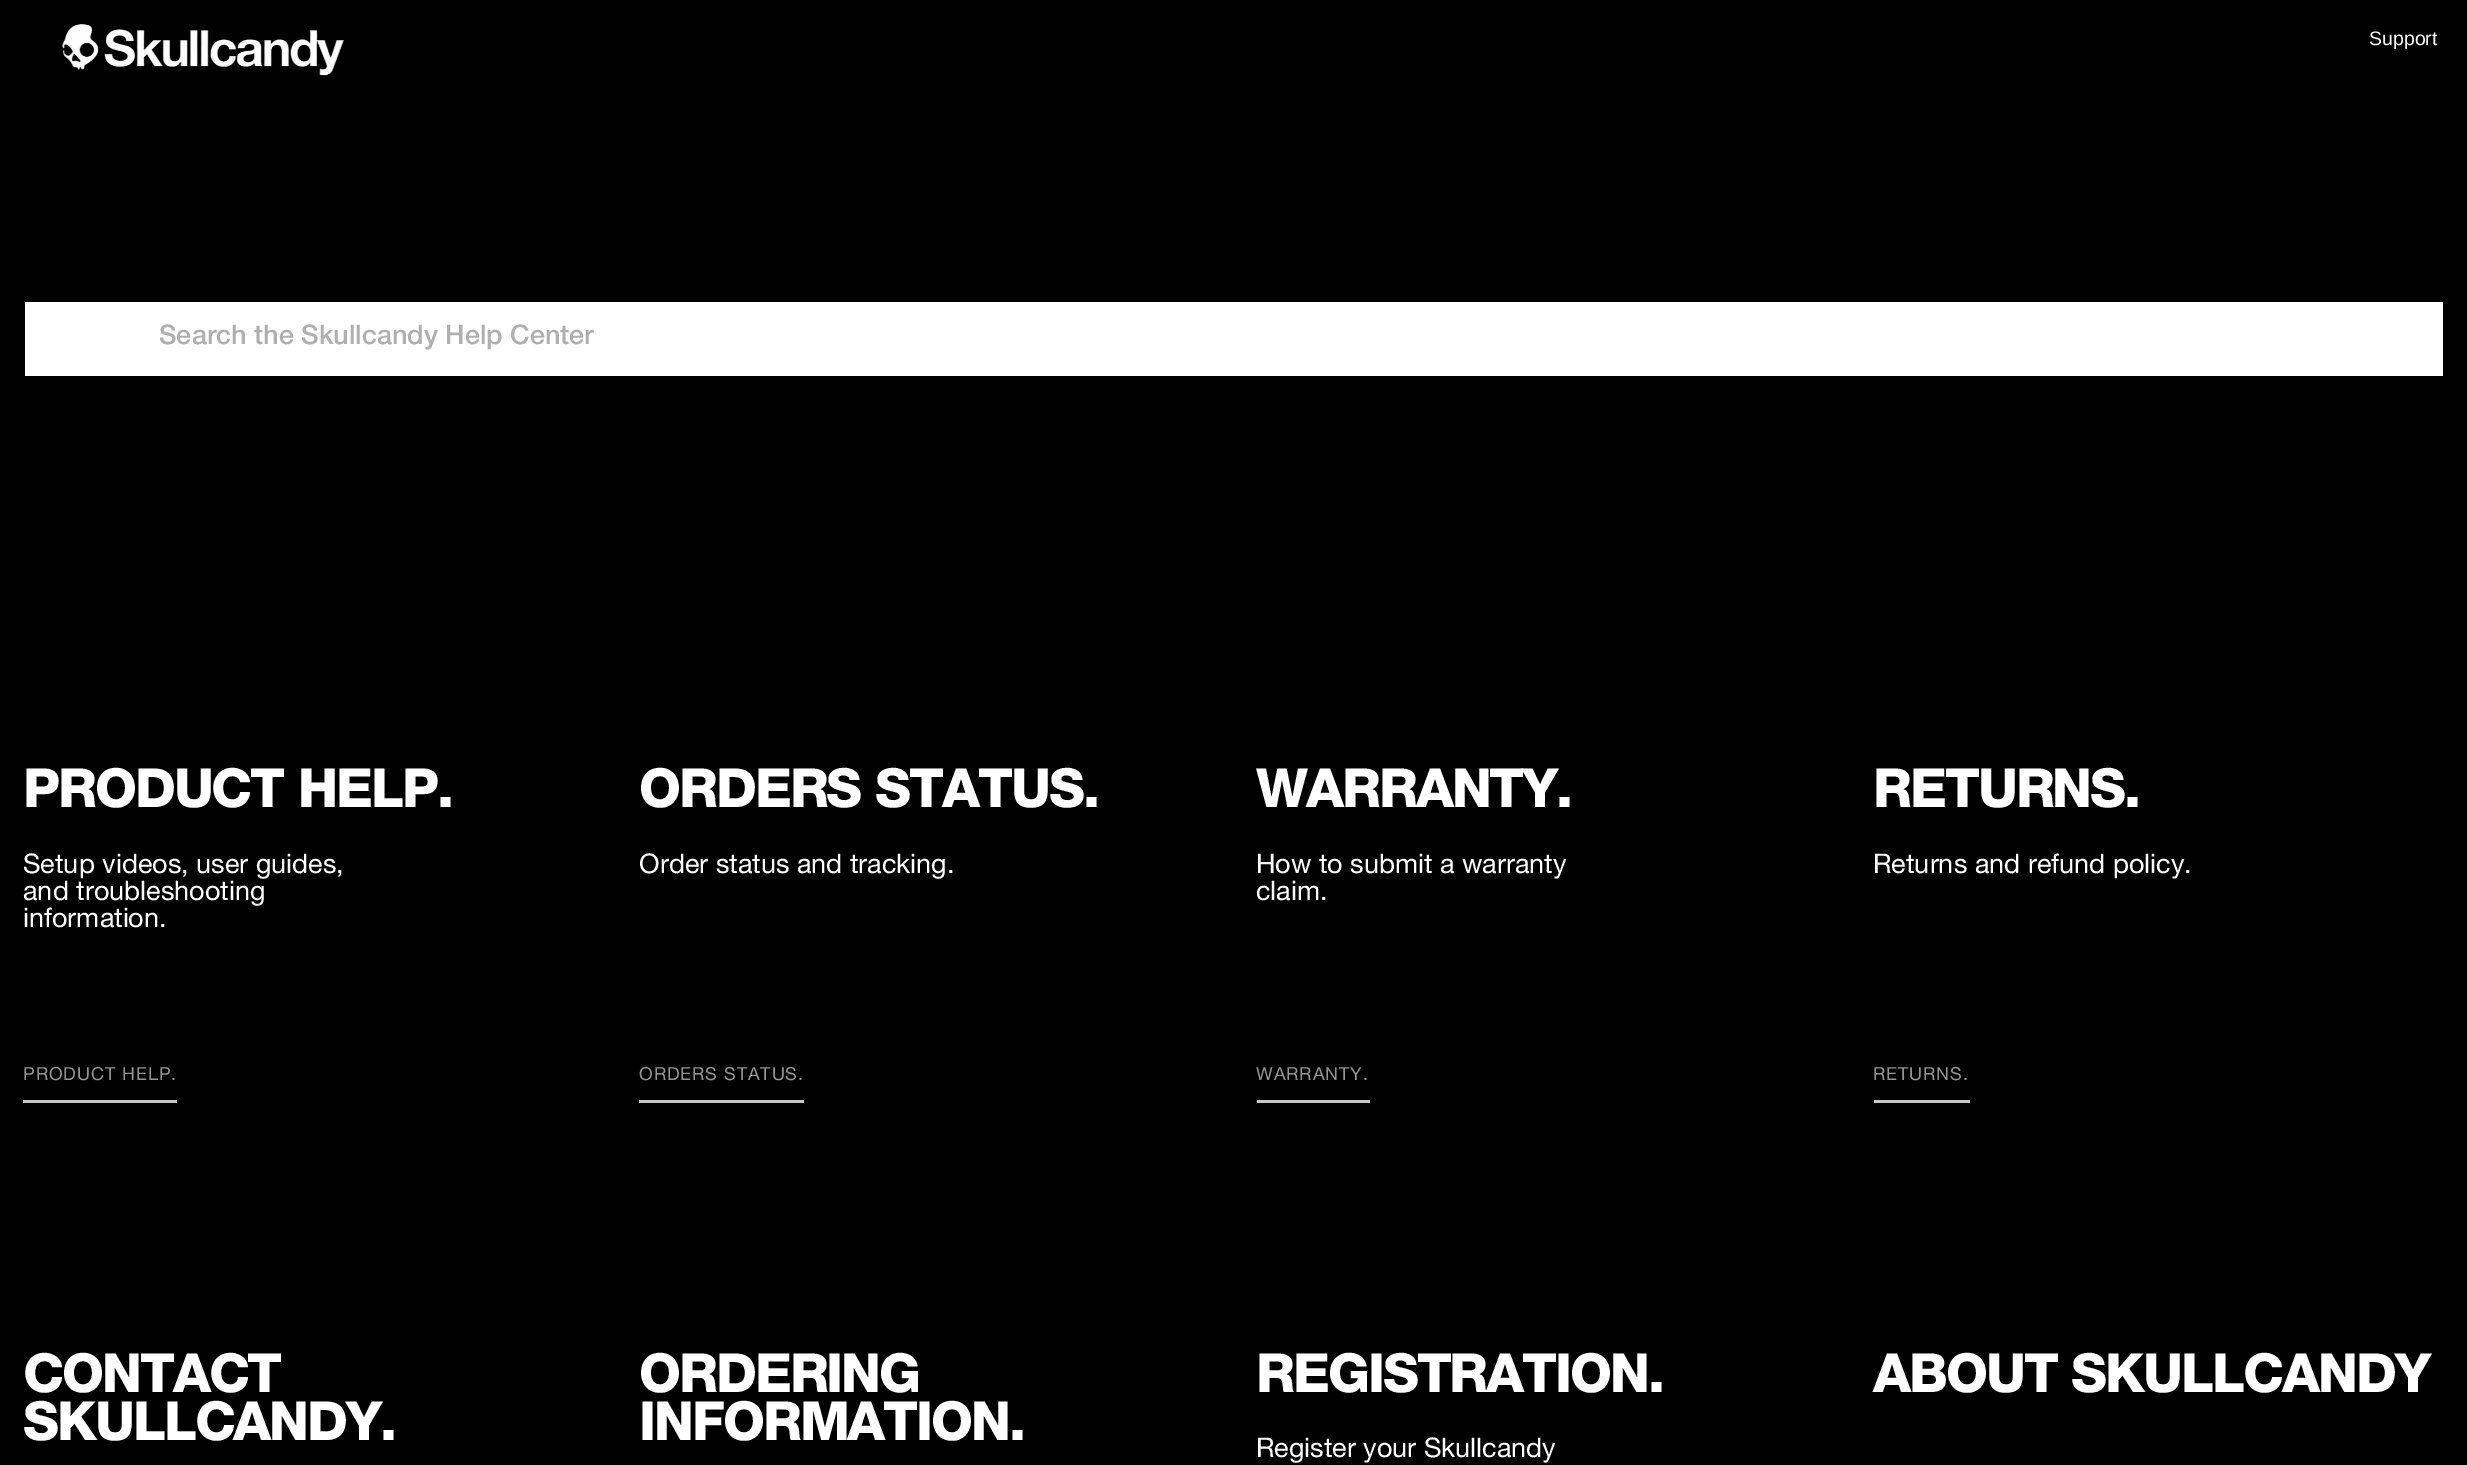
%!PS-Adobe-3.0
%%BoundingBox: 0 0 2467 1465
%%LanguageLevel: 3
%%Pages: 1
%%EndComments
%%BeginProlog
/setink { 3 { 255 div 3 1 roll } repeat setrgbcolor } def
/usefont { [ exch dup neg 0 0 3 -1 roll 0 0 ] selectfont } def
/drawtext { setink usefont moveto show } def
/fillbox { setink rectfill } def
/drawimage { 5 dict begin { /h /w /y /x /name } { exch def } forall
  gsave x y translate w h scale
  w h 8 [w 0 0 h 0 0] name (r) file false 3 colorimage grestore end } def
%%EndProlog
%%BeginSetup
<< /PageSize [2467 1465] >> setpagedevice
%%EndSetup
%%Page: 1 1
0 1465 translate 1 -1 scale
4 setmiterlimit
0 0 2467 1465 0 0 0 fillbox
(assets/img1.rgb) 62 24 282 52 drawimage
(Support) 2369 45 /LiberationSans-Regular 19.5 255 255 255 drawtext
25 302 2418 74 255 255 255 fillbox
(Search the Skullcandy Help Center) 159 344 /HelveticaNeue-Medium 27 175 175 175 drawtext
/HelveticaNeue-Bold 54 usefont
255 255 255 setink
23 807 moveto -2.1 0 (PRODUCT HELP.) ashow
(Setup videos, user guides,) 23 873 /HelveticaNeue-Regular 27 255 255 255 drawtext
(and troubleshooting) 23 900 /HelveticaNeue-Regular 27 255 255 255 drawtext
(information.) 23 927 /HelveticaNeue-Regular 27 255 255 255 drawtext
/HelveticaNeue-Regular 18 usefont
150 150 150 setink
23 1080 moveto 0.9 0 (PRODUCT HELP.) ashow
23 1100 154 3 199 199 199 fillbox
/HelveticaNeue-Bold 54 usefont
255 255 255 setink
639 807 moveto -2.1 0 (ORDERS STATUS.) ashow
(Order status and tracking.) 639 873 /HelveticaNeue-Regular 27 255 255 255 drawtext
/HelveticaNeue-Regular 18 usefont
150 150 150 setink
639 1080 moveto 0.9 0 (ORDERS STATUS.) ashow
639 1100 165 3 199 199 199 fillbox
/HelveticaNeue-Bold 54 usefont
255 255 255 setink
1256 807 moveto -2.1 0 (WARRANTY.) ashow
(How to submit a warranty) 1256 873 /HelveticaNeue-Regular 27 255 255 255 drawtext
(claim.) 1256 900 /HelveticaNeue-Regular 27 255 255 255 drawtext
/HelveticaNeue-Regular 18 usefont
150 150 150 setink
1256 1080 moveto 0.9 0 (WARRANTY.) ashow
1257 1100 113 3 199 199 199 fillbox
/HelveticaNeue-Bold 54 usefont
255 255 255 setink
1873 807 moveto -2.1 0 (RETURNS.) ashow
(Returns and refund policy.) 1873 873 /HelveticaNeue-Regular 27 255 255 255 drawtext
/HelveticaNeue-Regular 18 usefont
150 150 150 setink
1873 1080 moveto 0.9 0 (RETURNS.) ashow
1874 1100 96 3 199 199 199 fillbox
/HelveticaNeue-Bold 54 usefont
255 255 255 setink
23 1392 moveto -2.1 0 (CONTACT) ashow
23 1440 moveto -2.1 0 (SKULLCANDY.) ashow
639 1392 moveto -2.1 0 (ORDERING) ashow
639 1440 moveto -2.1 0 (INFORMATION.) ashow
1256 1392 moveto -2.1 0 (REGISTRATION.) ashow
(Register your Skullcandy) 1256 1457 /HelveticaNeue-Regular 27 255 255 255 drawtext
/HelveticaNeue-Bold 54 usefont
1873 1392 moveto -2.1 0 (ABOUT SKULLCANDY) ashow
showpage
%%EOF
